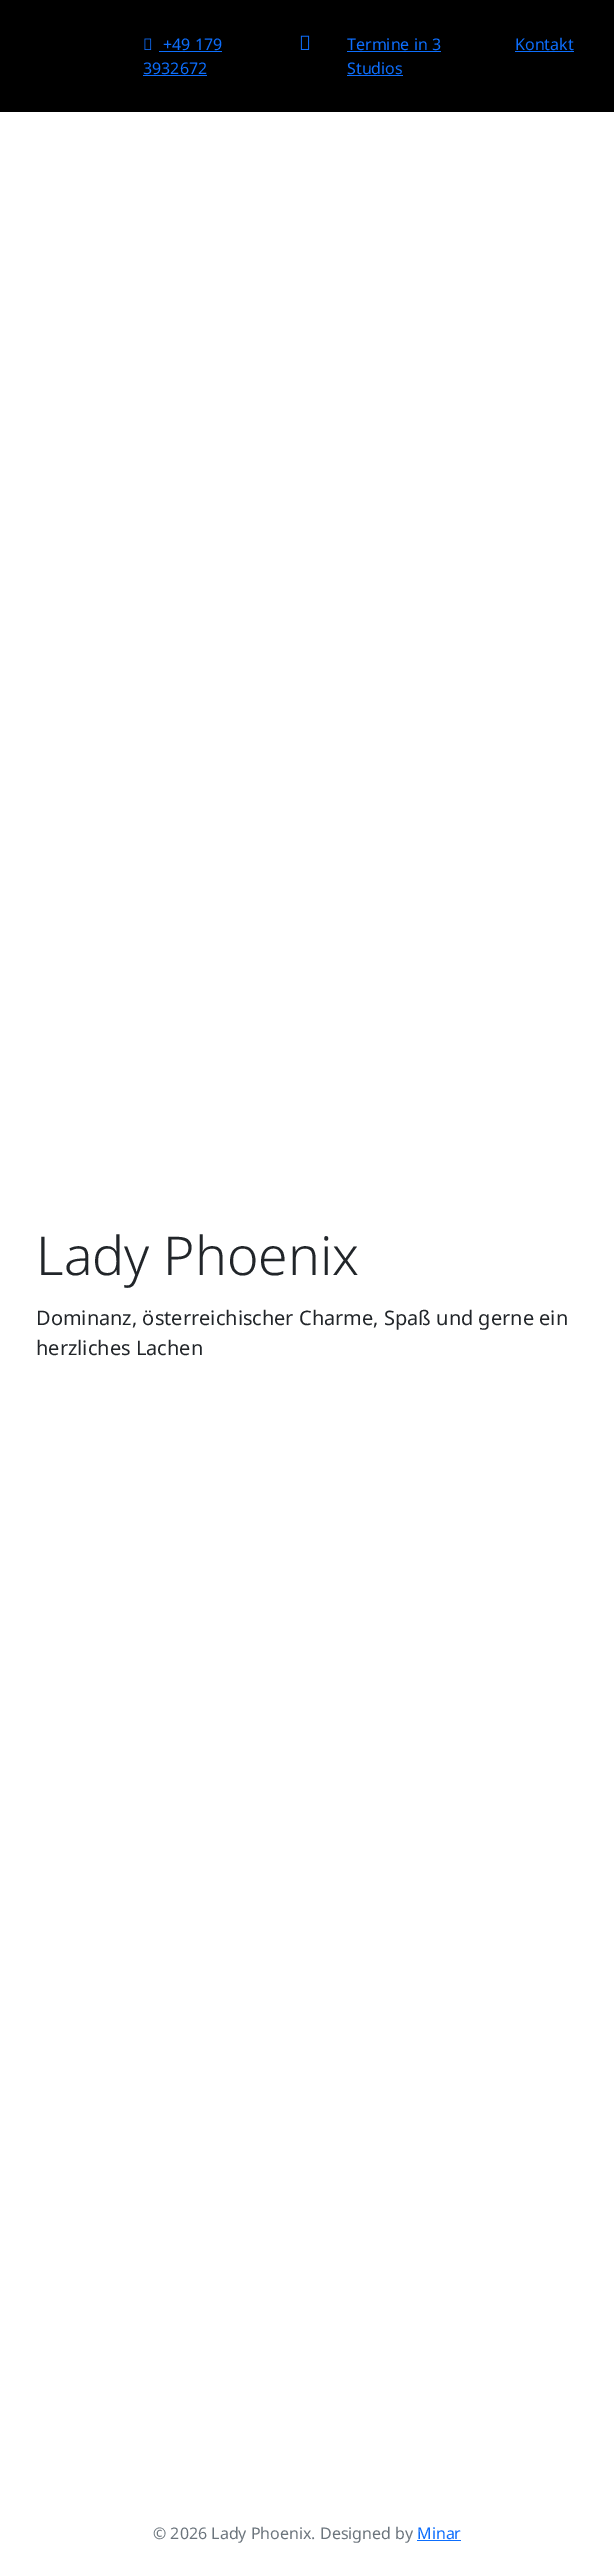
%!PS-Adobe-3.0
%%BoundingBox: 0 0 614 2571
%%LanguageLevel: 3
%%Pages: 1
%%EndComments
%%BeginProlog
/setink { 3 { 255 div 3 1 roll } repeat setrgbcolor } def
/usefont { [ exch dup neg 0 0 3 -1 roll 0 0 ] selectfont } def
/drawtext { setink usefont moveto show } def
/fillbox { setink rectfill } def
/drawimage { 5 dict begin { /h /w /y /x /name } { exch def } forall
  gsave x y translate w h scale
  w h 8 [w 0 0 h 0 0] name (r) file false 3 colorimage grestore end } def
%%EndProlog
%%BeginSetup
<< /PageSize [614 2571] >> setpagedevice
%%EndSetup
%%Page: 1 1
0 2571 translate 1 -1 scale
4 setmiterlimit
0 0 614 2571 255 255 255 fillbox
0 0 614 112 0 0 0 fillbox
(assets/img1.rgb) 144 38 8 12 drawimage
(+49 179) 163 50 /NotoSans-Regular 16 13 110 253 drawtext
159 51 63 1 13 110 253 fillbox
(3932672) 143 74 /NotoSans-Regular 16 13 110 253 drawtext
143 75 64 1 13 110 253 fillbox
(assets/img2.rgb) 300 35 10 15 drawimage
(Termine in 3) 347 50 /NotoSans-Regular 16 13 110 253 drawtext
347 51 94 1 13 110 253 fillbox
(Studios) 347 74 /NotoSans-Regular 16 13 110 253 drawtext
347 75 56 1 13 110 253 fillbox
(Kontakt) 515 50 /NotoSans-Regular 16 13 110 253 drawtext
515 51 59 1 13 110 253 fillbox
(Lady Phoenix) 36 1275 /NotoSans-Light 53.5 33 37 41 drawtext
(Dominanz, österreichischer Charme, Spaß und gerne ein) 36 1325 /NotoSans-Regular 20 33 37 41 drawtext
(herzliches Lachen) 36 1355 /NotoSans-Regular 20 33 37 41 drawtext
(© 2026 Lady Phoenix. Designed by) 153 2539 /NotoSans-Regular 16 108 117 125 drawtext
(Minar) 417 2539 /NotoSans-Regular 16 13 110 253 drawtext
417 2540 44 1 13 110 253 fillbox
showpage
%%EOF
